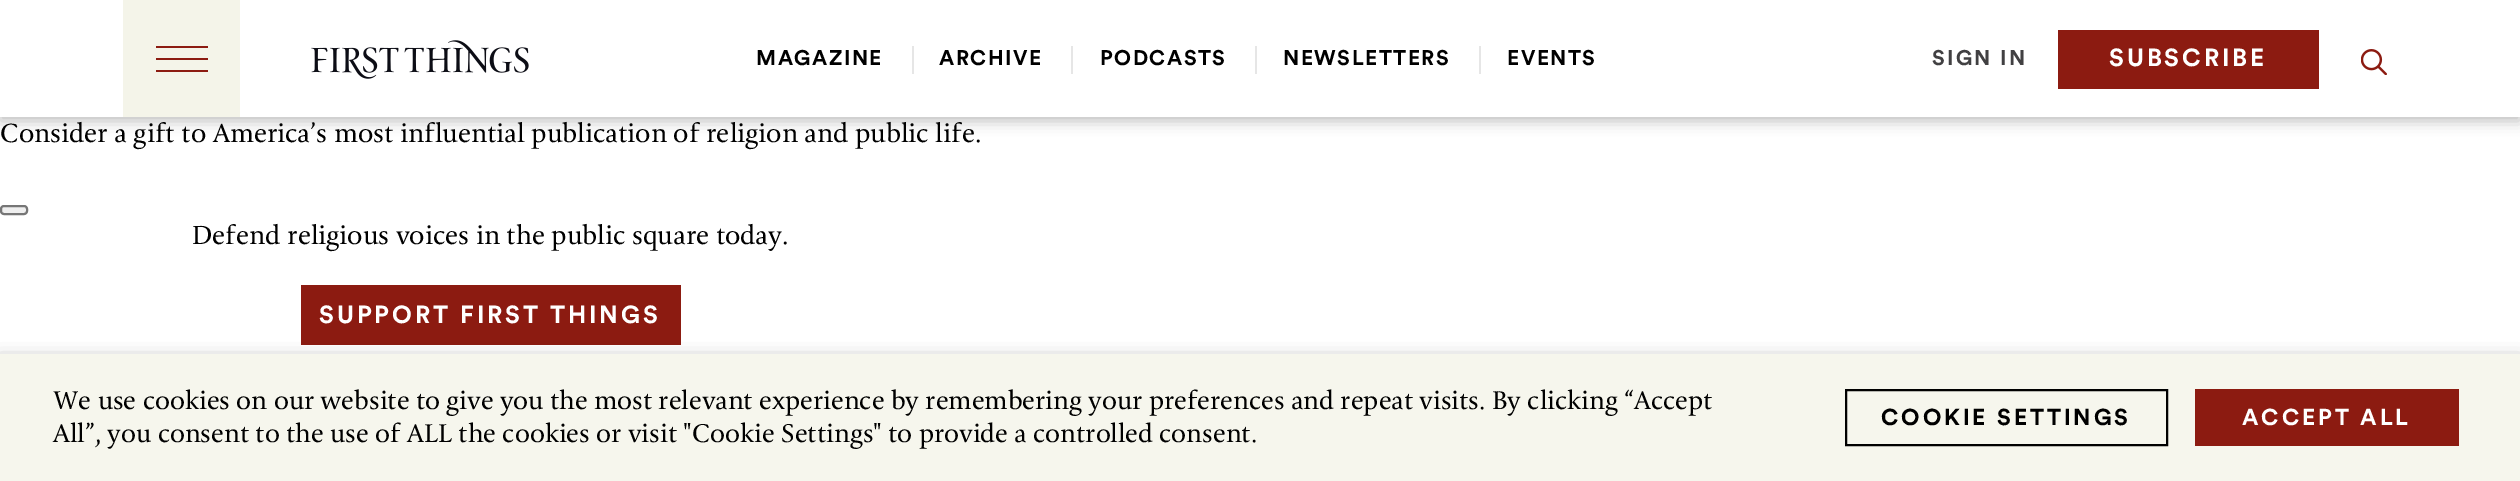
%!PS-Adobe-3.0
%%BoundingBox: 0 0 2520 481
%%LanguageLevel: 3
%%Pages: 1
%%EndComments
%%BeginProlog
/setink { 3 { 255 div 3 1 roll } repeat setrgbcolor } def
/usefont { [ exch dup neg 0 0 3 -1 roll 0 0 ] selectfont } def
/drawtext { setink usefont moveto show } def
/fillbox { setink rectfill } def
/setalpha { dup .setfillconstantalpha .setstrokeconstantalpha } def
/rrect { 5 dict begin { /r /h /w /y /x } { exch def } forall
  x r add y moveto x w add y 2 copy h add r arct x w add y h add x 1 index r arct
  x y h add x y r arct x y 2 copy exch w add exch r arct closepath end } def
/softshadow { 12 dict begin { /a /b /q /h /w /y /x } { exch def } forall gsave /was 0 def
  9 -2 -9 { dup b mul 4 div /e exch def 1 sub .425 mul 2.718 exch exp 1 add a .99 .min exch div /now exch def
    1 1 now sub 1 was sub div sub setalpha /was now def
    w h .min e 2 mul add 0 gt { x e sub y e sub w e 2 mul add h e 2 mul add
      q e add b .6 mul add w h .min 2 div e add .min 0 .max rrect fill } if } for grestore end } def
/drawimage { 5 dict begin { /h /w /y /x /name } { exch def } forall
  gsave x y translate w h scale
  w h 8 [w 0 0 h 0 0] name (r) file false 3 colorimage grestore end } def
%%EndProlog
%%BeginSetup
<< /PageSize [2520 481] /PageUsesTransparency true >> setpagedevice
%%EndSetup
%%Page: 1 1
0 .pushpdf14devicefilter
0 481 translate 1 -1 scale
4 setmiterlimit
0 0 2520 481 255 255 255 fillbox
0 0 0 setink
0 4 2520 117 0 7 0.25 softshadow
0 0 2520 117 255 255 255 fillbox
123 0 117 117 244 244 233 fillbox
156 58 52 2 140 27 17 fillbox
156 46 52 2 140 27 17 fillbox
156 70 52 2 140 27 17 fillbox
(assets/img1.rgb) 311 40 218 39 drawimage
/Circular-Bold 21 usefont
0 0 0 setink
756 65 moveto 1.5 0 (MAGAZINE) ashow
912 46 2 28 230 230 230 fillbox
0 0 0 setink
939 65 moveto 1.5 0 (ARCHIVE) ashow
1071 46 2 28 230 230 230 fillbox
0 0 0 setink
1100 65 moveto 1.5 0 (PODCASTS) ashow
1255 46 2 28 230 230 230 fillbox
0 0 0 setink
1283 65 moveto 1.5 0 (NEWSLETTERS) ashow
1479 46 2 28 230 230 230 fillbox
0 0 0 setink
1507 65 moveto 1.5 0 (EVENTS) ashow
65 64 66 setink
1932 65 moveto 2.25 0 (SIGN IN) ashow
2058 30 261 59 140 27 17 fillbox
/Circular-Bold 24.5 usefont
255 255 255 setink
2109 66 moveto 2.9 0 (SUBSCRIBE) ashow
(assets/img2.rgb) 2361 49 26 26 drawimage
(Consider a gift to America’s most influential publication of religion and public life.) 0 142 /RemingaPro-Regular 26.25 0 0 0 drawtext
239 239 239 setink
1 206 26 8 3 rrect gsave fill grestore
118 118 118 setink
2 setlinewidth
stroke
(Defend religious voices in the public square today.) 192 244 /RemingaPro-Regular 26.25 0 0 0 drawtext
301 285 380 60 140 27 17 fillbox
/Circular-Bold 24.5 usefont
255 255 255 setink
319 323 moveto 2.9 0 (SUPPORT FIRST THINGS) ashow
0 0 0 setink
0 362 2520 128 0 9 0.5 softshadow
0 354 2520 127 246 246 237 fillbox
(We use cookies on our website to give you the most relevant experience by remembering your preferences and repeat visits. By clicking “Accept) 53 409 /RemingaPro-Regular 25.67 0 0 0 drawtext
(All”, you consent to the use of ALL the cookies or visit "Cookie Settings" to provide a controlled consent.) 53 442 /RemingaPro-Regular 25.67 0 0 0 drawtext
1846 390 321 55 rectstroke
/Circular-Bold 22.75 usefont
1881 425 moveto 2.9 0 (COOKIE SETTINGS) ashow
2195 389 264 57 140 27 17 fillbox
255 255 255 setink
2242 425 moveto 2.9 0 (ACCEPT ALL) ashow
.poppdf14devicefilter showpage
%%EOF
